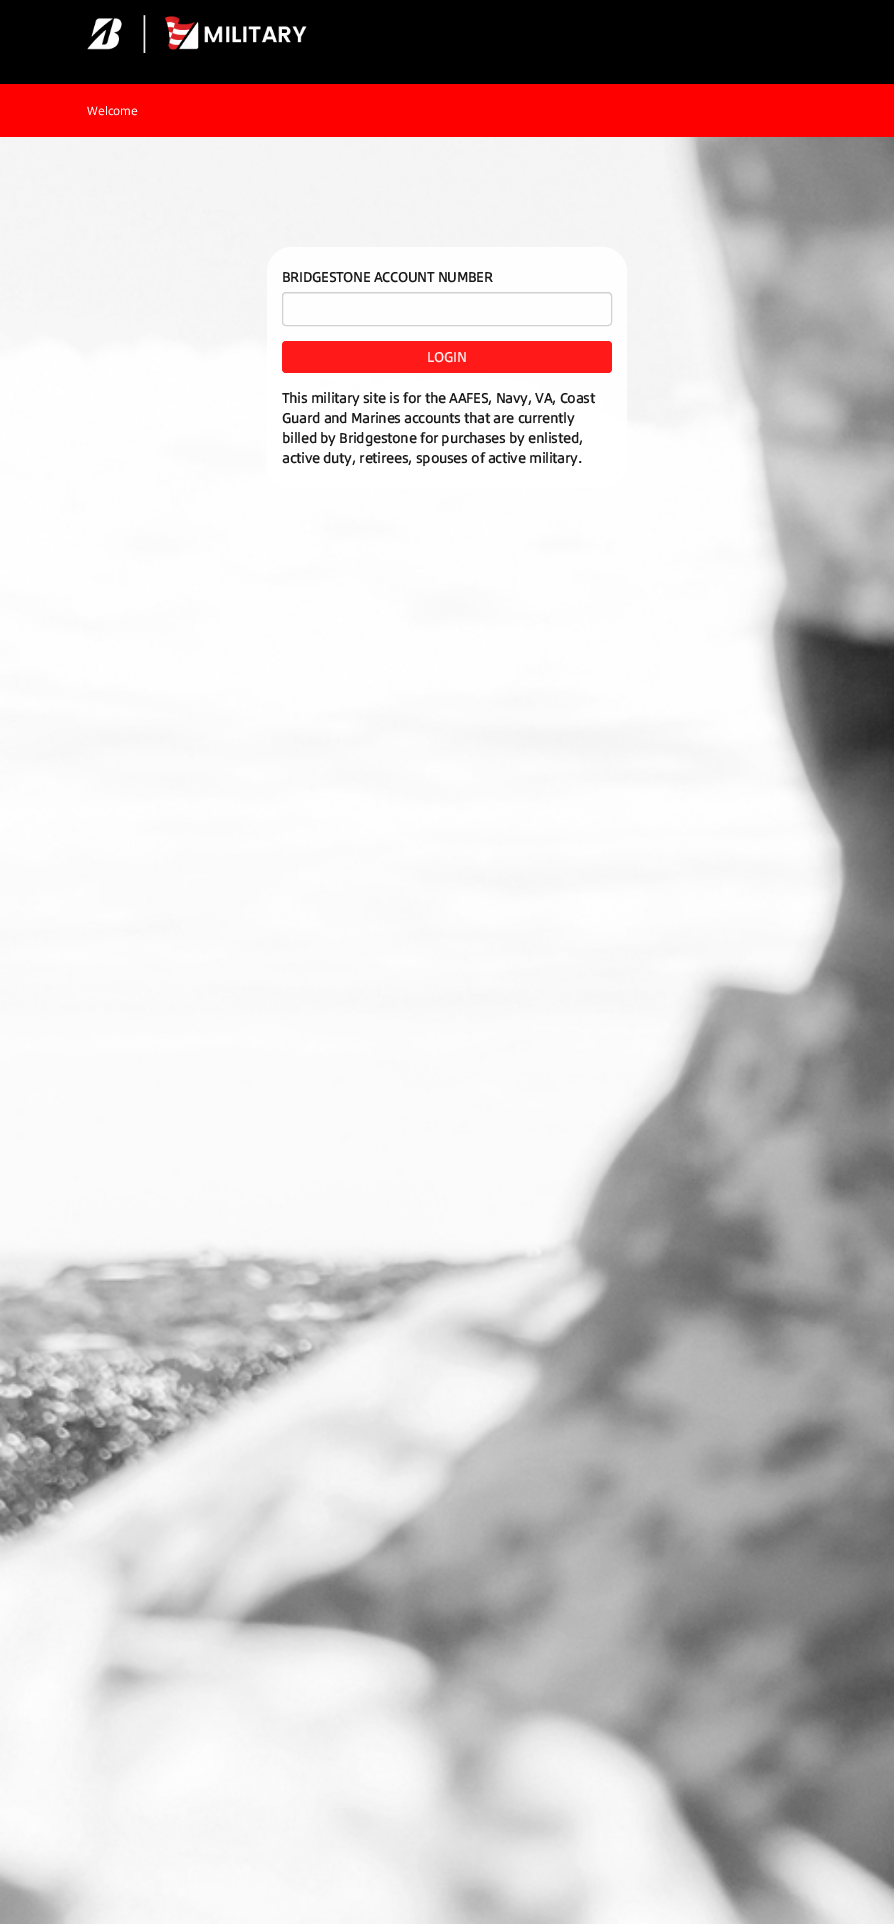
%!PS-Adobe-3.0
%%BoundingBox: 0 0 894 1924
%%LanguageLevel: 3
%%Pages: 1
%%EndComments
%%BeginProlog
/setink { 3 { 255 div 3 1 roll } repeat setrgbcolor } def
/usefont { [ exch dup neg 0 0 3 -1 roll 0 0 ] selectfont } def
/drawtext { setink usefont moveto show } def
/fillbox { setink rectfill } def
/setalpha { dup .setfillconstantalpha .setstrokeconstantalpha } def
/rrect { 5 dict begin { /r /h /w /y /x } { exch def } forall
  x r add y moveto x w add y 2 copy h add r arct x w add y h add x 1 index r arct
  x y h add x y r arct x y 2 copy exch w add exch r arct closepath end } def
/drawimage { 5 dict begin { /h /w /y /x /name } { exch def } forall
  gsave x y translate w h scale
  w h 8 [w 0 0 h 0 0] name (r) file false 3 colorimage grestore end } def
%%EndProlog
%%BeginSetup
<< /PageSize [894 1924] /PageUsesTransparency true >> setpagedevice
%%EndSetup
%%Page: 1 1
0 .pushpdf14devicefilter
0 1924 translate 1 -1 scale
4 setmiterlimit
0 0 894 1924 0 0 0 fillbox
(assets/img1.rgb) 87 15 220 38 drawimage
0 84 894 53 255 0 0 fillbox
(Welcome) 87 115 /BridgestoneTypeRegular-Regular 12 255 255 255 drawtext
(assets/img2.rgb) 0 137 894 1787 drawimage
0.9 setalpha
267 247 360 241 25 rrect fill
1 setalpha
(BRIDGESTONE ACCOUNT NUMBER) 282 282 /BridgestoneTypeRegular-Bold 14 25 25 25 drawtext
237 237 237 setink
286 294 moveto 608 294 lineto 610 294 611 295 611 297 curveto 611 295 610 293 608 293 curveto 286 293 lineto 284 293 283 295 283 297 curveto 283 295 284 294 286 294 curveto closepath fill
209 209 209 setink
282.5 292.5 329 33 3.5 rrect stroke
255 25 25 setink
282 341 330 32 4 rrect fill
(LOGIN) 427 362 /BridgestoneTypeRegular-Bold 14 255 232 232 drawtext
(This military site is for the AAFES, Navy, VA, Coast) 282 403 /BridgestoneTypeRegular-Bold 14 25 25 25 drawtext
(Guard and Marines accounts that are currently) 282 423 /BridgestoneTypeRegular-Bold 14 25 25 25 drawtext
(billed by Bridgestone for purchases by enlisted,) 282 443 /BridgestoneTypeRegular-Bold 14 25 25 25 drawtext
(active duty, retirees, spouses of active military.) 282 463 /BridgestoneTypeRegular-Bold 14 25 25 25 drawtext
.poppdf14devicefilter showpage
%%EOF
